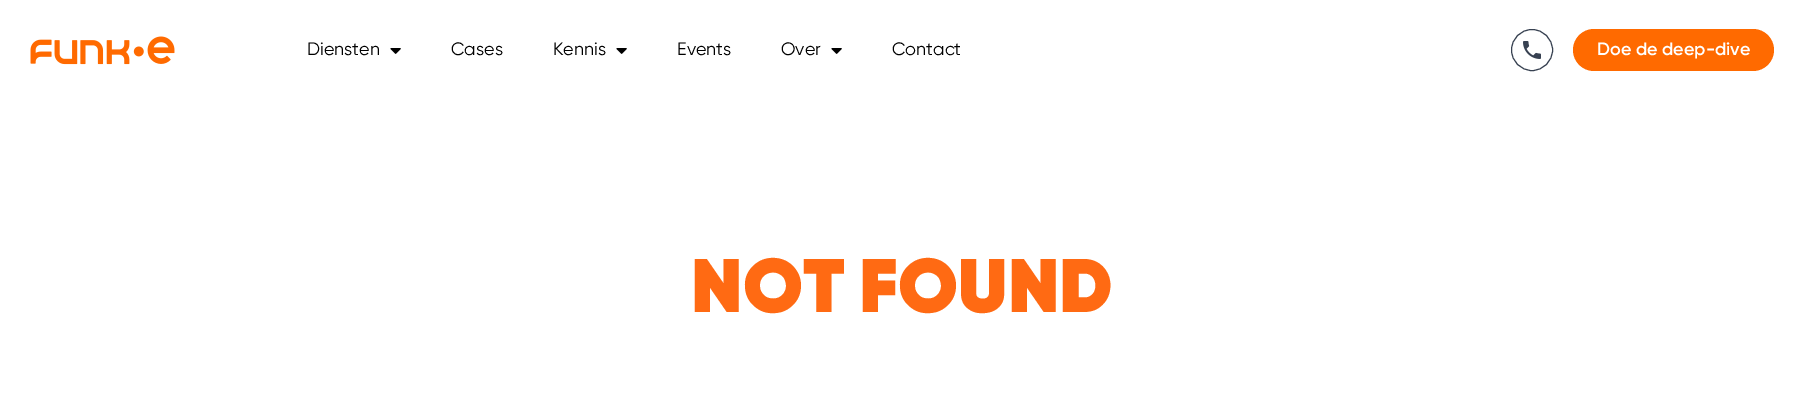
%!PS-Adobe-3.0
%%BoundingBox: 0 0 1804 418
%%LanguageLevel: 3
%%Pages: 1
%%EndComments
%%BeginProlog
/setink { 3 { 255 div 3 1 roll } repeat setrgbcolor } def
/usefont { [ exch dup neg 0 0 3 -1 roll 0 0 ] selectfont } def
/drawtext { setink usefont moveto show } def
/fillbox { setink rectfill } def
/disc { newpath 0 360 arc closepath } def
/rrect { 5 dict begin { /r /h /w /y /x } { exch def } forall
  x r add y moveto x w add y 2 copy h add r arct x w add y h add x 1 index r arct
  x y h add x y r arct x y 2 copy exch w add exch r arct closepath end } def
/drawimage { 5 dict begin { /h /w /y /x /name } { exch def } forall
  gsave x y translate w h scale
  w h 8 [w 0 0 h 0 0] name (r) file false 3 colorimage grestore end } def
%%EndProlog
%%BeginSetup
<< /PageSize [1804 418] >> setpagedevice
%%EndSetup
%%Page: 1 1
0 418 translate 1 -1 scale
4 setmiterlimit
0 0 1804 418 255 255 255 fillbox
(assets/img1.rgb) 30 36 145 29 drawimage
(Diensten) 307 55 /Gilroy-Regular 18 0 0 0 drawtext
(assets/img2.rgb) 390 48 11 6 drawimage
(Cases) 451 55 /Gilroy-Regular 18 0 0 0 drawtext
(Kennis) 553 55 /Gilroy-Regular 18 0 0 0 drawtext
(assets/img2.rgb) 616 48 11 6 drawimage
(Events) 677 55 /Gilroy-Regular 18 0 0 0 drawtext
(Over) 781 55 /Gilroy-Regular 18 0 0 0 drawtext
(assets/img2.rgb) 831 48 11 6 drawimage
(Contact) 892 55 /Gilroy-Regular 18 0 0 0 drawtext
55 65 81 setink
1532 50 20.5 disc stroke
(assets/img3.rgb) 1523 41 18 18 drawimage
255 106 0 setink
1573 29 201 42 21 rrect fill
(Doe de deep-dive) 1597 55 /Gilroy-SemiBold 18 255 255 255 drawtext
(NOT FOUND) 691 312 /Gilroy-Black 75.75 255 106 19 drawtext
showpage
%%EOF
